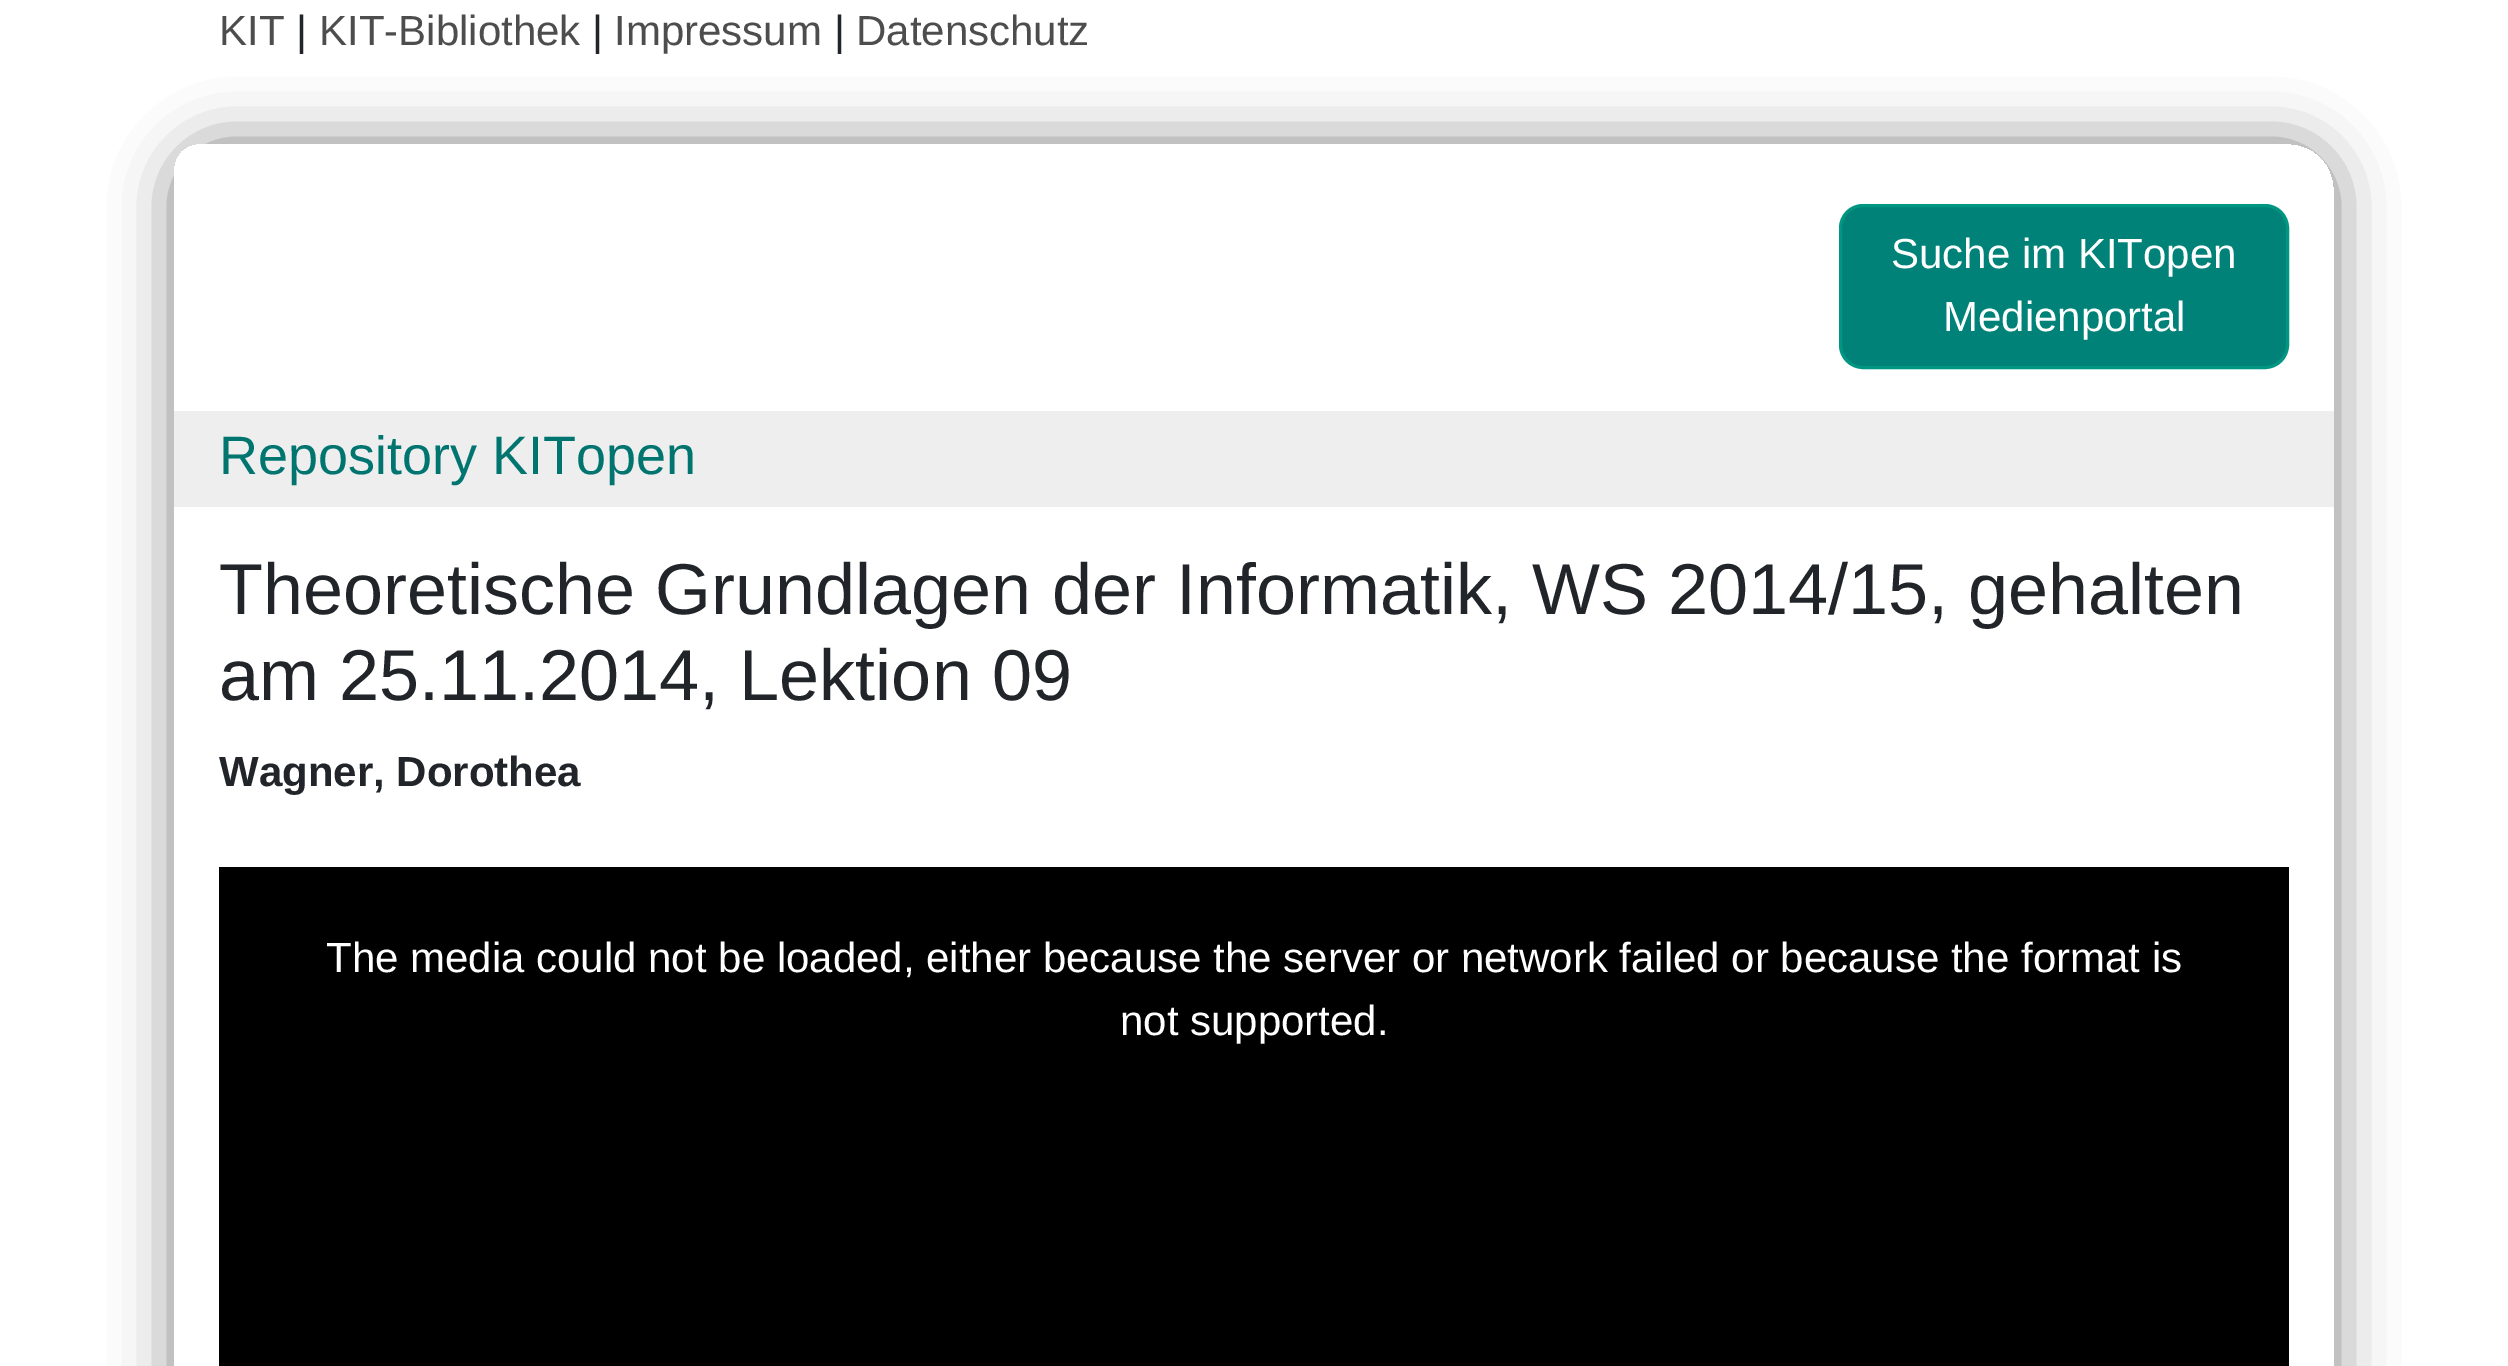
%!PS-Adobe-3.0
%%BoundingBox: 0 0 2508 1366
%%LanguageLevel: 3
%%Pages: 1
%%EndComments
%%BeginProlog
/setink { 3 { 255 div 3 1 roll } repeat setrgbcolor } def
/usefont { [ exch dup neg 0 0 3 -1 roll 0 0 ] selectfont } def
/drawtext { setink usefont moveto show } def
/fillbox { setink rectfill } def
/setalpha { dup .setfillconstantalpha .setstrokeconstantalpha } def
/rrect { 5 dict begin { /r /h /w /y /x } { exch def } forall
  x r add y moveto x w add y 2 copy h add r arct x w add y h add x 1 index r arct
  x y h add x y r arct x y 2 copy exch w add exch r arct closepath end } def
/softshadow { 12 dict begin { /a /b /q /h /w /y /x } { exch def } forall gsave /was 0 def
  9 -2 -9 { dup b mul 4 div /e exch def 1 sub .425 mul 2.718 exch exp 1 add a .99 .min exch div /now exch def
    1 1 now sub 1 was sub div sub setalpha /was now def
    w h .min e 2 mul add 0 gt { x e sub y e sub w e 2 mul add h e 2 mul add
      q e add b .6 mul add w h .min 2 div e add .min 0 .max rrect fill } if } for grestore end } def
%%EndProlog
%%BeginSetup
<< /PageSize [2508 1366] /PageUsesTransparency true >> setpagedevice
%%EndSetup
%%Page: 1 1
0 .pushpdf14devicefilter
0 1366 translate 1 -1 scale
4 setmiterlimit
0 0 2508 1366 255 255 255 fillbox
(KIT) 219 45 /LiberationSans-Regular 42 77 77 77 drawtext
gsave
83 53 moveto 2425 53 lineto 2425 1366 lineto 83 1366 lineto closepath 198 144 moveto 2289 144 lineto 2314 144 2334 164 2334 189 curveto 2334 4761 lineto 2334 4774.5 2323.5 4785 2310 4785 curveto 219 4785 lineto 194 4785 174 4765 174 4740 curveto 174 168 lineto 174 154.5 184.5 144 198 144 curveto closepath eoclip newpath
128 128 128 setink
174 144 2160 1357 45 30 1 softshadow
grestore
(|) 296 45 /LiberationSans-Regular 42 33 37 41 drawtext
(KIT-Bibliothek) 319 45 /LiberationSans-Regular 42 77 77 77 drawtext
(|) 592 45 /LiberationSans-Regular 42 33 37 41 drawtext
(Impressum) 614 45 /LiberationSans-Regular 42 77 77 77 drawtext
(|) 834 45 /LiberationSans-Regular 42 33 37 41 drawtext
(Datenschutz) 856 45 /LiberationSans-Regular 42 77 77 77 drawtext
0 130 120 setink
1840.5 205.5 447 162 22.5 rrect gsave fill grestore
0 150 130 setink
3 setlinewidth
stroke
(Suche im KITopen) 1891 268 /LiberationSans-Regular 42 255 255 255 drawtext
(Medienportal) 1943 331 /LiberationSans-Regular 42 255 255 255 drawtext
174 411 2160 96 238 238 238 fillbox
(Repository KITopen) 219 474 /LiberationSans-Regular 54 0 117 112 drawtext
(Theoretische Grundlagen der Informatik, WS 2014/15, gehalten) 219 614 /LiberationSans-Regular 72 33 37 41 drawtext
(am 25.11.2014, Lektion 09) 219 700 /LiberationSans-Regular 72 33 37 41 drawtext
(Wagner, Dorothea) 219 786 /LiberationSans-Bold 42 33 37 41 drawtext
219 867 2070 499 0 0 0 fillbox
(The media could not be loaded, either because the server or network failed or because the format is) 326 972 /LiberationSans-Regular 42 255 255 255 drawtext
(not supported.) 1120 1035 /LiberationSans-Regular 42 255 255 255 drawtext
.poppdf14devicefilter showpage
%%EOF
